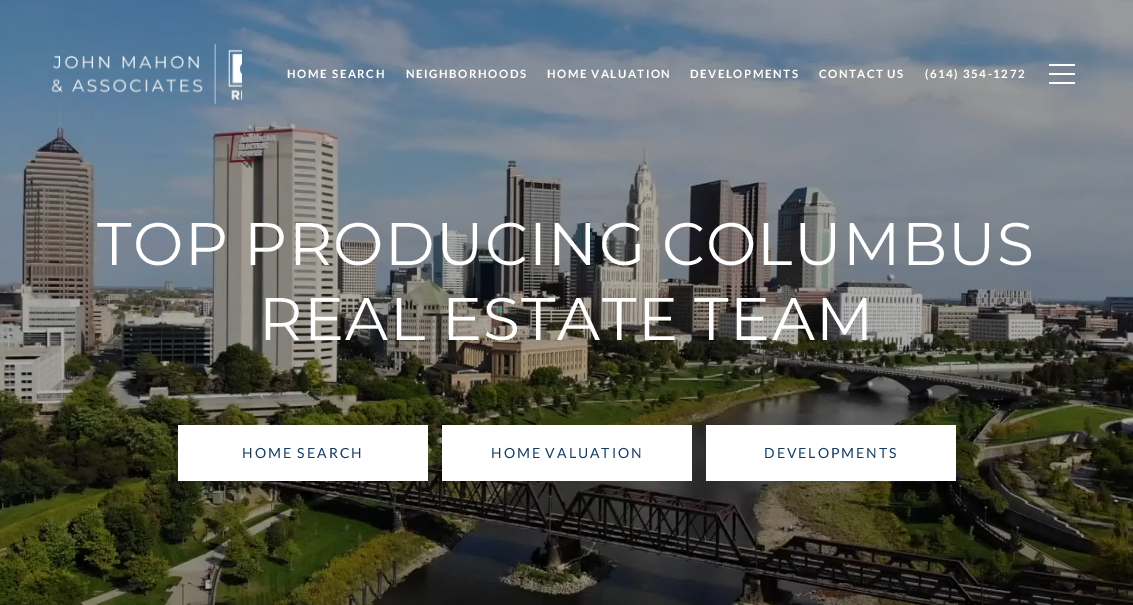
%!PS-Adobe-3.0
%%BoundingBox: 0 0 1133 605
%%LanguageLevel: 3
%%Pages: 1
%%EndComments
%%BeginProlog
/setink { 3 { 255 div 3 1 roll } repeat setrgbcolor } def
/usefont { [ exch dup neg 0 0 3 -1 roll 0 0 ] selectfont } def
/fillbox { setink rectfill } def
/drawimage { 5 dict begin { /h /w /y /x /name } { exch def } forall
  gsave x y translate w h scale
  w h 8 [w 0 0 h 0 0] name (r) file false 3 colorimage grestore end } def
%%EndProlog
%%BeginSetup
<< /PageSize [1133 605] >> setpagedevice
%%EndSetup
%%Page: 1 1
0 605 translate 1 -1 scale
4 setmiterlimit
0 0 1133 605 255 255 255 fillbox
(assets/img2.rgb) 0 0 1133 605 drawimage
(assets/img1.rgb) 51 43 191 62 drawimage
/Lato-Bold 11.5 usefont
287 78 moveto 1.5 0 (HOME SEARCH) ashow
406 78 moveto 1.5 0 (NEIGHBORHOODS) ashow
547 78 moveto -1 0 32 1.5 0 (HOME VALUATION) awidthshow
690 78 moveto 1.5 0 (DEVELOPMENTS) ashow
819 78 moveto -1 0 32 1.5 0 (CONTACT US) awidthshow
925 78 moveto 1.5 0 (\(614\) 354-1272) ashow
1049 73 26 2 255 255 255 fillbox
1049 64 26 2 255 255 255 fillbox
1049 82 26 2 255 255 255 fillbox
/Montserrat-Regular 60 usefont
97 265 moveto -2 0 32 1.4 0 (TOP PRODUCING COLUMBUS) awidthshow
259 340 moveto -2 0 32 1.4 0 (REAL ESTATE TEAM) awidthshow
178 425 250 56 255 255 255 fillbox
/Lato-Regular 14 usefont
19 60 99 setink
242 458 moveto 2 0 (HOME SEARCH) ashow
442 425 250 56 255 255 255 fillbox
19 60 99 setink
491 458 moveto -1 0 32 2 0 (HOME VALUATION) awidthshow
706 425 250 56 255 255 255 fillbox
19 60 99 setink
764 458 moveto 2 0 (DEVELOPMENTS) ashow
showpage
%%EOF
